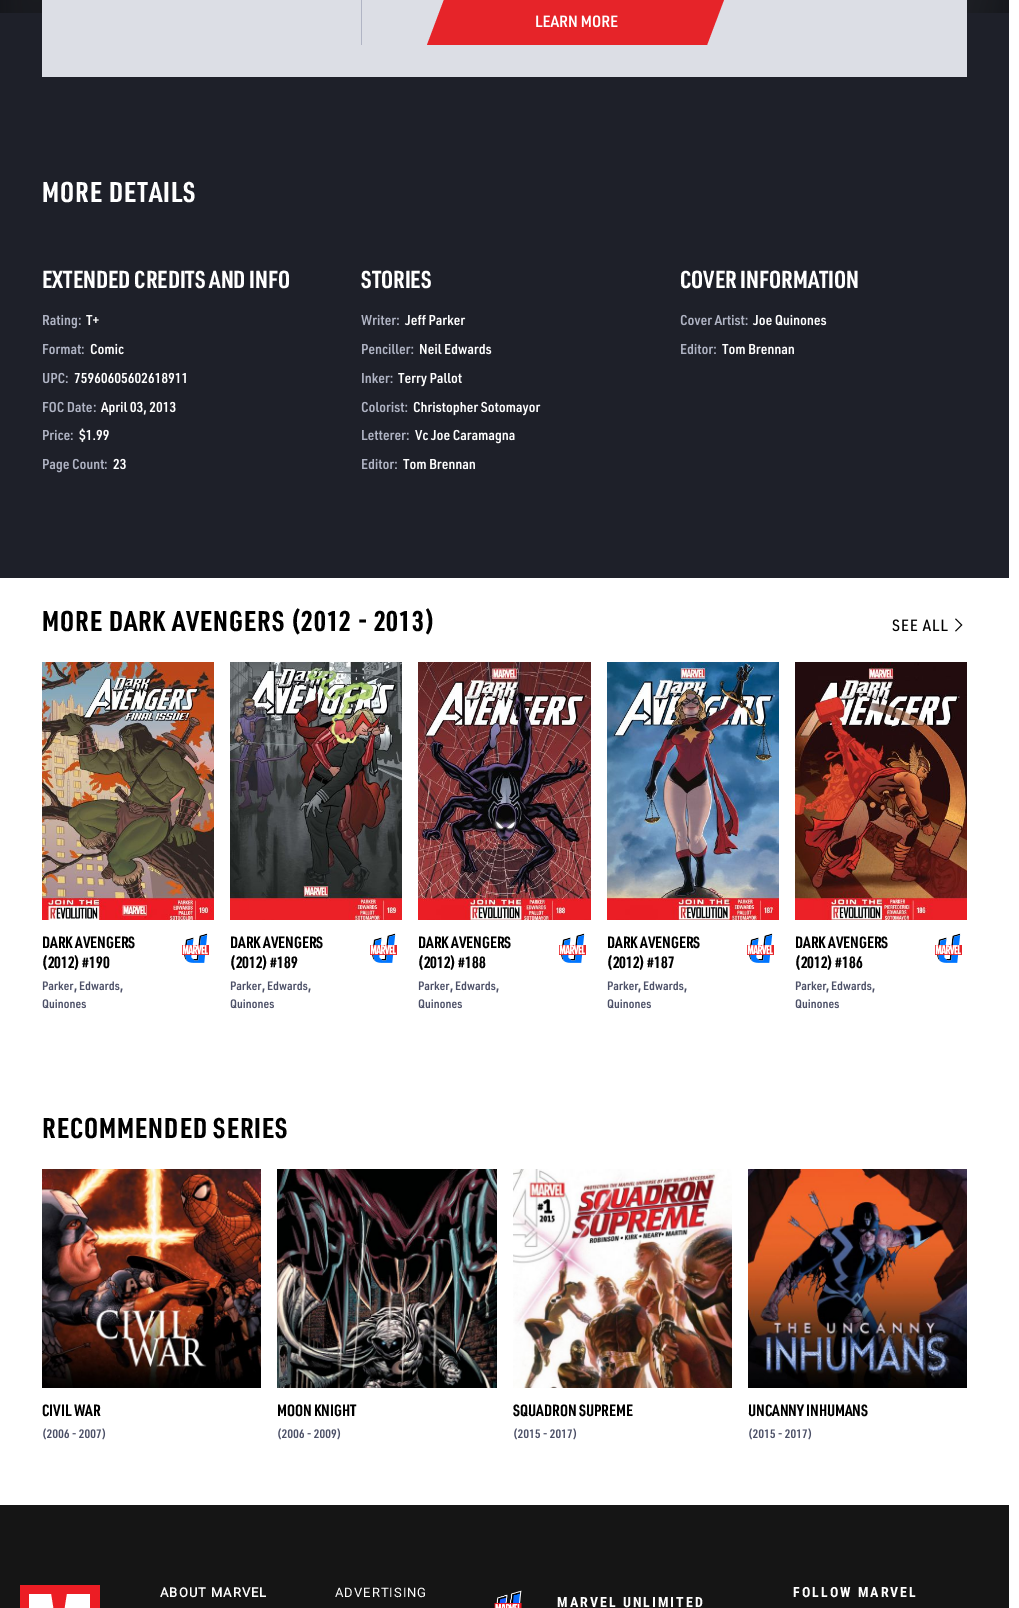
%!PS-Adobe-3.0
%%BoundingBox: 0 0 1019 1608
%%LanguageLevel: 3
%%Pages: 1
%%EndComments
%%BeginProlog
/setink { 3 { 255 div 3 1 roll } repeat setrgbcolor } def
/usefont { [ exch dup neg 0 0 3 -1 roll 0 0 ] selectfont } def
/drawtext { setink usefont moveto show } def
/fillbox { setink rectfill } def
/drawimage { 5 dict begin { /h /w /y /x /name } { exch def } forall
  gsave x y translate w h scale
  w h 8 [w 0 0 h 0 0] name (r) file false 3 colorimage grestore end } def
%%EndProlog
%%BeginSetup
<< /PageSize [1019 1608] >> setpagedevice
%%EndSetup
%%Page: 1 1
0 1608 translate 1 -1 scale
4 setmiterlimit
0 0 1019 1608 255 255 255 fillbox
0 0 1009 13 19 20 26 fillbox
(assets/img1.rgb) 0 0 1009 13 drawimage
0 13 1009 565 30 32 41 fillbox
42 0 925 77 220 222 229 fillbox
361 0 1 45 176 180 196 fillbox
230 36 41 setink
445 -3 moveto 725 -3 lineto 707 45 lineto 427 45 lineto closepath fill
(assets/img2.rgb) 536 15 82 13 drawimage
/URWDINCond-Bold 28 usefont
255 255 255 setink
42 202 moveto 1 0 (MORE DETAILS) ashow
(EXTENDED CREDITS AND INFO) 42 288 /URWDINCond-Bold 24 255 255 255 drawtext
(assets/img3.rgb) 43 314 34 15 drawimage
(assets/img4.rgb) 78 317 3 8 drawimage
(assets/img5.rgb) 86 315 13 10 drawimage
(assets/img6.rgb) 43 344 38 11 drawimage
(assets/img4.rgb) 81 346 3 8 drawimage
(assets/img7.rgb) 90 343 34 12 drawimage
(assets/img8.rgb) 43 372 22 12 drawimage
(assets/img4.rgb) 65 375 3 8 drawimage
(assets/img9.rgb) 74 372 112 12 drawimage
(assets/img10.rgb) 43 401 49 12 drawimage
(assets/img4.rgb) 93 404 3 8 drawimage
(assets/img11.rgb) 100 401 76 15 drawimage
(assets/img12.rgb) 43 429 27 12 drawimage
(assets/img4.rgb) 70 432 3 8 drawimage
(assets/img13.rgb) 79 428 30 14 drawimage
(assets/img14.rgb) 43 458 62 15 drawimage
(assets/img15.rgb) 104 461 3 8 drawimage
(assets/img16.rgb) 113 458 13 12 drawimage
(STORIES) 361 288 /URWDINCond-Bold 24 255 255 255 drawtext
(assets/img17.rgb) 361 314 38 12 drawimage
(assets/img18.rgb) 404 315 62 11 drawimage
(assets/img19.rgb) 362 343 52 12 drawimage
(assets/img20.rgb) 420 343 72 12 drawimage
(assets/img21.rgb) 362 373 31 11 drawimage
(assets/img22.rgb) 398 373 64 14 drawimage
(assets/img23.rgb) 361 401 47 12 drawimage
(assets/img24.rgb) 413 401 128 15 drawimage
(assets/img25.rgb) 362 430 47 11 drawimage
(assets/img26.rgb) 415 429 100 15 drawimage
(assets/img27.rgb) 362 458 35 12 drawimage
(assets/img28.rgb) 403 459 72 11 drawimage
(COVER INFORMATION) 680 288 /URWDINCond-Bold 24 255 255 255 drawtext
(assets/img29.rgb) 680 314 68 12 drawimage
(assets/img30.rgb) 752 314 75 12 drawimage
(assets/img27.rgb) 681 343 35 12 drawimage
(assets/img28.rgb) 722 344 72 11 drawimage
/URWDINCond-Bold 28 usefont
0 0 0 setink
42 631 moveto 1 0 (MORE DARK AVENGERS \(2012 - 2013\)) ashow
(assets/img31.rgb) 892 619 56 13 drawimage
(assets/img32.rgb) 955 618 8 14 drawimage
(assets/img33.rgb) 42 662 172 258 drawimage
(DARK AVENGERS) 42 948 /URWDINCond-Bold 16 0 0 0 drawtext
(\(2012\) #190) 42 968 /URWDINCond-Bold 16 0 0 0 drawtext
(assets/img34.rgb) 42 981 32 10 drawimage
76 80 103 setink
74.5 992.5 moveto 75 988.5 lineto 76.5 988.5 lineto 75.5 992.5 lineto closepath fill
(assets/img35.rgb) 79 981 41 10 drawimage
120.5 992.5 moveto 121 988.5 lineto 122.5 988.5 lineto 121.5 992.5 lineto closepath fill
(assets/img36.rgb) 42 999 44 10 drawimage
(assets/img37.rgb) 182 933 27 30 drawimage
(assets/img38.rgb) 230 662 172 258 drawimage
(DARK AVENGERS) 230 948 /URWDINCond-Bold 16 0 0 0 drawtext
(\(2012\) #189) 230 968 /URWDINCond-Bold 16 0 0 0 drawtext
(assets/img34.rgb) 230 981 32 10 drawimage
76 80 103 setink
262.5 992.5 moveto 263 988.5 lineto 264.5 988.5 lineto 263.5 992.5 lineto closepath fill
(assets/img35.rgb) 267 981 41 10 drawimage
308.5 992.5 moveto 309 988.5 lineto 310.5 988.5 lineto 309.5 992.5 lineto closepath fill
(assets/img36.rgb) 230 999 44 10 drawimage
(assets/img37.rgb) 370 933 27 30 drawimage
(assets/img39.rgb) 418 662 173 258 drawimage
(DARK AVENGERS) 418 948 /URWDINCond-Bold 16 0 0 0 drawtext
(\(2012\) #188) 418 968 /URWDINCond-Bold 16 0 0 0 drawtext
(assets/img34.rgb) 418 981 32 10 drawimage
76 80 103 setink
450.5 992.5 moveto 451 988.5 lineto 452.5 988.5 lineto 451.5 992.5 lineto closepath fill
(assets/img35.rgb) 455 981 41 10 drawimage
496.5 992.5 moveto 497 988.5 lineto 498.5 988.5 lineto 497.5 992.5 lineto closepath fill
(assets/img36.rgb) 418 999 44 10 drawimage
(assets/img37.rgb) 559 933 27 30 drawimage
(assets/img40.rgb) 607 662 172 258 drawimage
(DARK AVENGERS) 607 948 /URWDINCond-Bold 16 0 0 0 drawtext
(\(2012\) #187) 607 968 /URWDINCond-Bold 16 0 0 0 drawtext
(assets/img34.rgb) 607 981 32 10 drawimage
76 80 103 setink
638.5 992.5 moveto 639 988.5 lineto 640.5 988.5 lineto 639.5 992.5 lineto closepath fill
(assets/img35.rgb) 643 981 41 10 drawimage
684.5 992.5 moveto 685 988.5 lineto 686.5 988.5 lineto 685.5 992.5 lineto closepath fill
(assets/img36.rgb) 607 999 44 10 drawimage
(assets/img37.rgb) 747 933 27 30 drawimage
(assets/img41.rgb) 795 662 172 258 drawimage
(DARK AVENGERS) 795 948 /URWDINCond-Bold 16 0 0 0 drawtext
(\(2012\) #186) 795 968 /URWDINCond-Bold 16 0 0 0 drawtext
(assets/img34.rgb) 795 981 32 10 drawimage
76 80 103 setink
826.5 992.5 moveto 827 988.5 lineto 828.5 988.5 lineto 827.5 992.5 lineto closepath fill
(assets/img35.rgb) 831 981 41 10 drawimage
872.5 992.5 moveto 873 988.5 lineto 874.5 988.5 lineto 873.5 992.5 lineto closepath fill
(assets/img36.rgb) 795 999 44 10 drawimage
(assets/img37.rgb) 935 933 27 30 drawimage
/URWDINCond-Bold 28 usefont
0 0 0 setink
42 1138 moveto 1 0 (RECOMMENDED SERIES) ashow
(assets/img42.rgb) 42 1169 219 219 drawimage
(CIVIL WAR) 42 1416 /URWDINCond-Bold 16 0 0 0 drawtext
(assets/img43.rgb) 43 1428 63 12 drawimage
(assets/img44.rgb) 277 1169 220 219 drawimage
(MOON KNIGHT) 277 1416 /URWDINCond-Bold 16 0 0 0 drawtext
(assets/img45.rgb) 278 1428 63 12 drawimage
(assets/img46.rgb) 513 1169 219 219 drawimage
(SQUADRON SUPREME) 513 1416 /URWDINCond-Bold 16 0 0 0 drawtext
(assets/img47.rgb) 514 1428 63 12 drawimage
(assets/img48.rgb) 748 1169 219 219 drawimage
(UNCANNY INHUMANS) 748 1416 /URWDINCond-Bold 16 0 0 0 drawtext
(assets/img47.rgb) 749 1428 63 12 drawimage
0 1505 1009 103 21 21 21 fillbox
20 1585 80 23 236 29 36 fillbox
254 254 254 setink
90 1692 moveto 90 1594 lineto 67 1594 lineto 59 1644 lineto 51 1594 lineto 29 1594 lineto 29 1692 lineto 47 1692 lineto 47 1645 lineto 55 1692 lineto 64 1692 lineto 72 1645 lineto 72 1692 lineto closepath fill
/Roboto-Bold 13 usefont
255 255 255 setink
160 1597 moveto 1 0 (ABOUT MARVEL) ashow
/Roboto-Regular 13 usefont
335 1597 moveto 1 0 (ADVERTISING) ashow
/RobotoCondensed-Bold 14 usefont
793 1597 moveto 2 0 (FOLLOW MARVEL) ashow
(assets/img49.rgb) 494 1590 28 18 drawimage
557 1607 moveto 2 0 (MARVEL UNLIMITED) ashow
showpage
%%EOF
